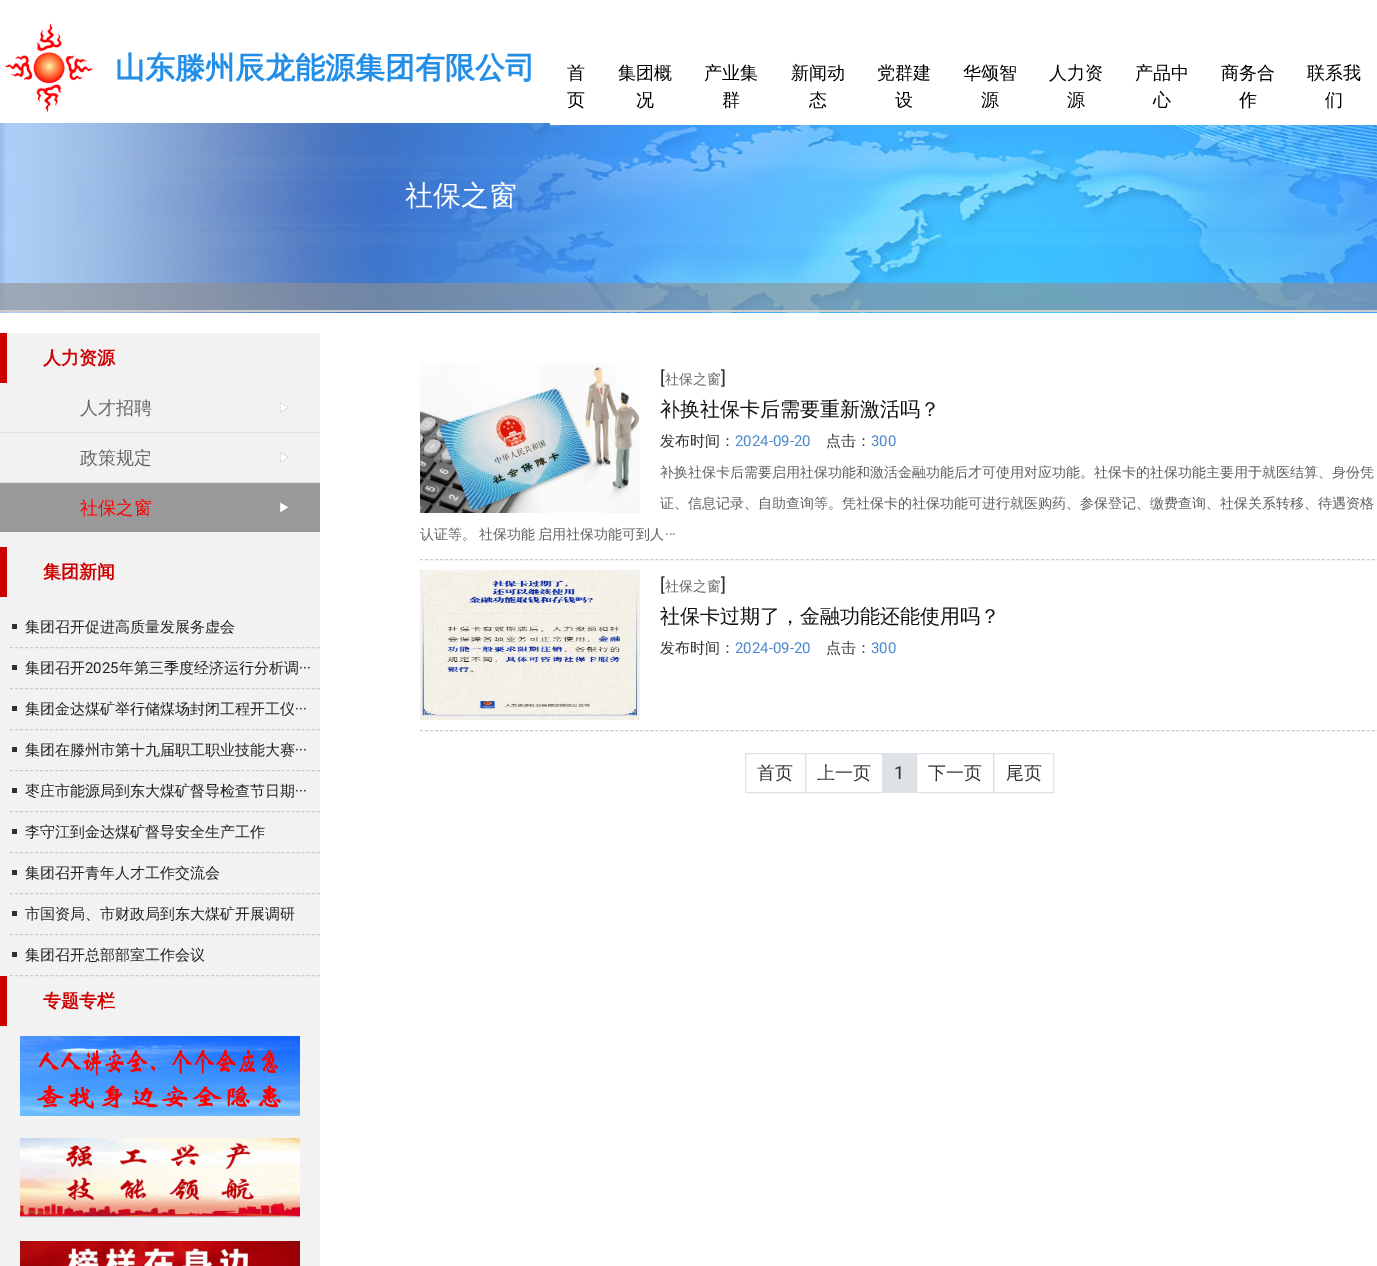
%!PS-Adobe-3.0
%%BoundingBox: 0 0 1377 1266
%%LanguageLevel: 3
%%Pages: 1
%%EndComments
%%BeginProlog
/setink { 3 { 255 div 3 1 roll } repeat setrgbcolor } def
/usefont { [ exch dup neg 0 0 3 -1 roll 0 0 ] selectfont } def
/drawtext { setink usefont moveto show } def
/fillbox { setink rectfill } def
/setalpha { dup .setfillconstantalpha .setstrokeconstantalpha } def
/drawimage { 5 dict begin { /h /w /y /x /name } { exch def } forall
  gsave x y translate w h scale
  w h 8 [w 0 0 h 0 0] name (r) file false 3 colorimage grestore end } def
%%EndProlog
%%BeginSetup
<< /PageSize [1377 1266] /PageUsesTransparency true >> setpagedevice
%%EndSetup
%%Page: 1 1
0 .pushpdf14devicefilter
0 1266 translate 1 -1 scale
4 setmiterlimit
0 0 1377 1266 255 255 255 fillbox
(assets/img1.rgb) 4 23 90 90 drawimage
(山东滕州辰龙能源集团有限公司) 115 78 /WenQuanYiZenHei-Bold 30 35 142 231 drawtext
(assets/img2.rgb) 0 123 1377 190 drawimage
550 123 827 2 255 255 255 fillbox
(首) 567 79 /WenQuanYiZenHei-Medium 18 0 0 0 drawtext
(页) 567 106 /WenQuanYiZenHei-Medium 18 0 0 0 drawtext
(集团概) 618 79 /WenQuanYiZenHei-Medium 18 0 0 0 drawtext
(况) 636 106 /WenQuanYiZenHei-Medium 18 0 0 0 drawtext
(产业集) 704 79 /WenQuanYiZenHei-Medium 18 0 0 0 drawtext
(群) 722 106 /WenQuanYiZenHei-Medium 18 0 0 0 drawtext
(新闻动) 791 79 /WenQuanYiZenHei-Medium 18 0 0 0 drawtext
(态) 809 106 /WenQuanYiZenHei-Medium 18 0 0 0 drawtext
(党群建) 877 79 /WenQuanYiZenHei-Medium 18 0 0 0 drawtext
(设) 895 106 /WenQuanYiZenHei-Medium 18 0 0 0 drawtext
(华颂智) 963 79 /WenQuanYiZenHei-Medium 18 0 0 0 drawtext
(源) 981 106 /WenQuanYiZenHei-Medium 18 0 0 0 drawtext
(人力资) 1049 79 /WenQuanYiZenHei-Medium 18 0 0 0 drawtext
(源) 1067 106 /WenQuanYiZenHei-Medium 18 0 0 0 drawtext
(产品中) 1135 79 /WenQuanYiZenHei-Medium 18 0 0 0 drawtext
(心) 1153 106 /WenQuanYiZenHei-Medium 18 0 0 0 drawtext
(商务合) 1221 79 /WenQuanYiZenHei-Medium 18 0 0 0 drawtext
(作) 1239 106 /WenQuanYiZenHei-Medium 18 0 0 0 drawtext
(联系我) 1307 79 /WenQuanYiZenHei-Medium 18 0 0 0 drawtext
(们) 1325 106 /WenQuanYiZenHei-Medium 18 0 0 0 drawtext
(社保之窗) 405 205 /WenQuanYiZenHei-Medium 28 255 255 255 drawtext
0.6 setalpha
0 283 1377 27 144 144 144 fillbox
1 setalpha
0 310 1377 2 204 204 204 fillbox
0 333 320 933 242 242 242 fillbox
0 333 7 50 204 0 0 fillbox
(人力资源) 43 364 /WenQuanYiZenHei-Bold 18 204 0 0 drawtext
(assets/img3.rgb) 280 402 9 11 drawimage
(assets/img4.rgb) 280 402 8 10 drawimage
(人才招聘) 80 414 /WenQuanYiZenHei-Medium 18 102 102 102 drawtext
(assets/img3.rgb) 280 452 9 11 drawimage
0 432 320 1 226 225 230 fillbox
(assets/img4.rgb) 280 452 8 10 drawimage
(政策规定) 80 464 /WenQuanYiZenHei-Medium 18 102 102 102 drawtext
0 482 320 1 226 225 230 fillbox
0 483 320 49 153 153 153 fillbox
(assets/img5.rgb) 280 502 9 11 drawimage
(社保之窗) 80 514 /WenQuanYiZenHei-Medium 18 255 0 0 drawtext
0 547 7 50 204 0 0 fillbox
(集团新闻) 43 578 /WenQuanYiZenHei-Bold 18 204 0 0 drawtext
12 624 5 5 50 48 40 fillbox
204 204 204 setink
[3 2.03] 0 setdash
10 647.5 moveto 320 647.5 lineto stroke
(集团召开促进高质量发展务虚会) 25 632 /WenQuanYiZenHei-Medium 15 34 34 34 drawtext
12 665 5 5 50 48 40 fillbox
204 204 204 setink
10 688.5 moveto 320 688.5 lineto stroke
(集团召开) 25 673 /WenQuanYiZenHei-Medium 15 34 34 34 drawtext
(2025) 85 673 /Roboto-Regular 15 34 34 34 drawtext
(年第三季度经济运行分析调) 119 673 /WenQuanYiZenHei-Medium 15 34 34 34 drawtext
(···) 299 673 /Roboto-Regular 15 34 34 34 drawtext
12 706 5 5 50 48 40 fillbox
204 204 204 setink
10 729.5 moveto 320 729.5 lineto stroke
(集团金达煤矿举行储煤场封闭工程开工仪) 25 714 /WenQuanYiZenHei-Medium 15 34 34 34 drawtext
(···) 295 714 /Roboto-Regular 15 34 34 34 drawtext
12 747 5 5 50 48 40 fillbox
204 204 204 setink
10 770.5 moveto 320 770.5 lineto stroke
(集团在滕州市第十九届职工职业技能大赛) 25 755 /WenQuanYiZenHei-Medium 15 34 34 34 drawtext
(···) 295 755 /Roboto-Regular 15 34 34 34 drawtext
12 788 5 5 50 48 40 fillbox
204 204 204 setink
10 811.5 moveto 320 811.5 lineto stroke
(枣庄市能源局到东大煤矿督导检查节日期) 25 796 /WenQuanYiZenHei-Medium 15 34 34 34 drawtext
(···) 295 796 /Roboto-Regular 15 34 34 34 drawtext
12 829 5 5 50 48 40 fillbox
204 204 204 setink
10 852.5 moveto 320 852.5 lineto stroke
(李守江到金达煤矿督导安全生产工作) 25 837 /WenQuanYiZenHei-Medium 15 34 34 34 drawtext
12 870 5 5 50 48 40 fillbox
204 204 204 setink
10 893.5 moveto 320 893.5 lineto stroke
(集团召开青年人才工作交流会) 25 878 /WenQuanYiZenHei-Medium 15 34 34 34 drawtext
12 911 5 5 50 48 40 fillbox
204 204 204 setink
10 934.5 moveto 320 934.5 lineto stroke
(市国资局、市财政局到东大煤矿开展调研) 25 919 /WenQuanYiZenHei-Medium 15 34 34 34 drawtext
12 952 5 5 50 48 40 fillbox
204 204 204 setink
10 975.5 moveto 320 975.5 lineto stroke
(集团召开总部部室工作会议) 25 960 /WenQuanYiZenHei-Medium 15 34 34 34 drawtext
0 976 7 50 204 0 0 fillbox
(专题专栏) 43 1007 /WenQuanYiZenHei-Bold 18 204 0 0 drawtext
(assets/img6.rgb) 20 1036 280 80 drawimage
(assets/img7.rgb) 20 1138 280 80 drawimage
(assets/img8.rgb) 20 1241 280 25 drawimage
204 204 204 setink
[3 2.01] 0 setdash
420 559.5 moveto 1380 559.5 lineto stroke
(assets/img9.rgb) 420 363 220 150 drawimage
([) 660 384 /Roboto-Regular 18 51 51 51 drawtext
(社保之窗) 665 384 /WenQuanYiZenHei-Medium 14 102 102 102 drawtext
(]) 721 384 /Roboto-Regular 18 51 51 51 drawtext
(补换社保卡后需要重新激活吗？) 660 416 /WenQuanYiZenHei-Medium 20 17 17 17 drawtext
(发布时间：) 660 446 /WenQuanYiZenHei-Medium 15 51 51 51 drawtext
(2024-09-20) 735 446 /Roboto-Regular 15 71 135 207 drawtext
(点击：) 826 446 /WenQuanYiZenHei-Medium 15 51 51 51 drawtext
(300) 871 446 /Roboto-Regular 15 71 135 207 drawtext
(补换社保卡后需要启用社保功能和激活金融功能后才可使用对应功能。社保卡的社保功能主要用于就医结算、身份凭) 660 477 /WenQuanYiZenHei-Medium 14 96 95 95 drawtext
(证、信息记录、自助查询等。凭社保卡的社保功能可进行就医购药、参保登记、缴费查询、社保关系转移、待遇资格) 660 508 /WenQuanYiZenHei-Medium 14 96 95 95 drawtext
420 539 moveto -1 0 32 (认证等。 社保功能 启用社保功能可到人) widthshow
(···) 665 539 /Roboto-Regular 14 96 95 95 drawtext
204 204 204 setink
420 730.5 moveto 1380 730.5 lineto stroke
(assets/img10.rgb) 420 570 220 150 drawimage
([) 660 591 /Roboto-Regular 18 51 51 51 drawtext
(社保之窗) 665 591 /WenQuanYiZenHei-Medium 14 102 102 102 drawtext
(]) 721 591 /Roboto-Regular 18 51 51 51 drawtext
(社保卡过期了，金融功能还能使用吗？) 660 623 /WenQuanYiZenHei-Medium 20 17 17 17 drawtext
(发布时间：) 660 653 /WenQuanYiZenHei-Medium 15 51 51 51 drawtext
(2024-09-20) 735 653 /Roboto-Regular 15 71 135 207 drawtext
(点击：) 826 653 /WenQuanYiZenHei-Medium 15 51 51 51 drawtext
(300) 871 653 /Roboto-Regular 15 71 135 207 drawtext
222 226 230 setink
[] 0 setdash
745.5 753.5 60 39 rectstroke
(首页) 757 779 /WenQuanYiZenHei-Medium 18 51 51 51 drawtext
222 226 230 setink
805.5 753.5 77 39 rectstroke
(上一页) 817 779 /WenQuanYiZenHei-Medium 18 51 51 51 drawtext
883 753 33 40 222 226 230 fillbox
(1) 894 779 /Roboto-Regular 18 51 51 51 drawtext
222 226 230 setink
916.5 753.5 77 39 rectstroke
(下一页) 928 779 /WenQuanYiZenHei-Medium 18 51 51 51 drawtext
222 226 230 setink
993.5 753.5 60 39 rectstroke
(尾页) 1006 779 /WenQuanYiZenHei-Medium 18 51 51 51 drawtext
.poppdf14devicefilter showpage
%%EOF
